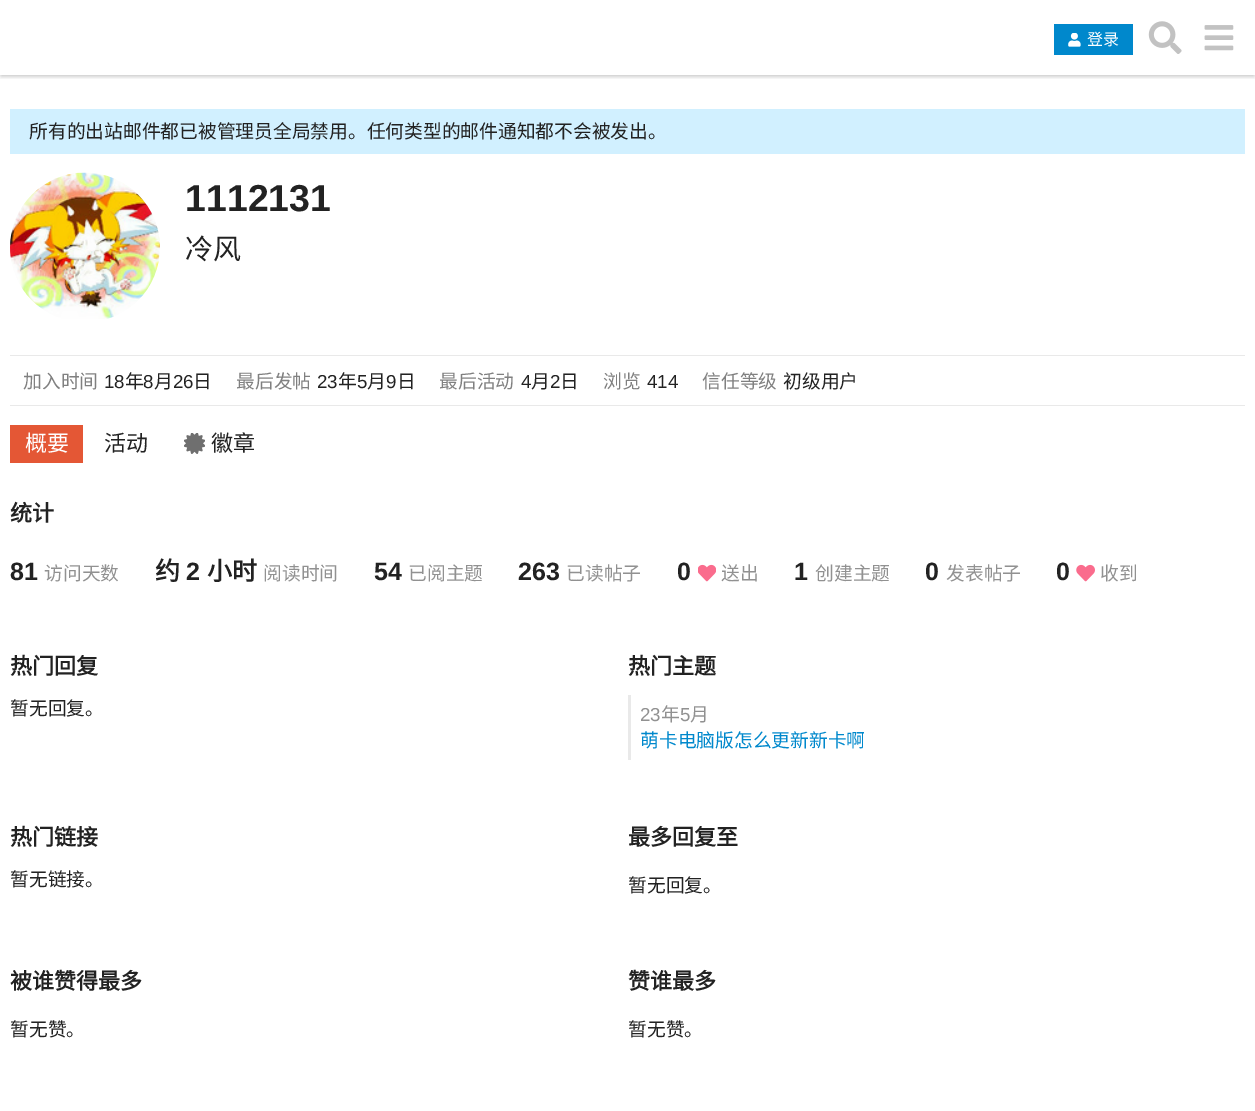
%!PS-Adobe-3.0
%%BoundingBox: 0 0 1255 1111
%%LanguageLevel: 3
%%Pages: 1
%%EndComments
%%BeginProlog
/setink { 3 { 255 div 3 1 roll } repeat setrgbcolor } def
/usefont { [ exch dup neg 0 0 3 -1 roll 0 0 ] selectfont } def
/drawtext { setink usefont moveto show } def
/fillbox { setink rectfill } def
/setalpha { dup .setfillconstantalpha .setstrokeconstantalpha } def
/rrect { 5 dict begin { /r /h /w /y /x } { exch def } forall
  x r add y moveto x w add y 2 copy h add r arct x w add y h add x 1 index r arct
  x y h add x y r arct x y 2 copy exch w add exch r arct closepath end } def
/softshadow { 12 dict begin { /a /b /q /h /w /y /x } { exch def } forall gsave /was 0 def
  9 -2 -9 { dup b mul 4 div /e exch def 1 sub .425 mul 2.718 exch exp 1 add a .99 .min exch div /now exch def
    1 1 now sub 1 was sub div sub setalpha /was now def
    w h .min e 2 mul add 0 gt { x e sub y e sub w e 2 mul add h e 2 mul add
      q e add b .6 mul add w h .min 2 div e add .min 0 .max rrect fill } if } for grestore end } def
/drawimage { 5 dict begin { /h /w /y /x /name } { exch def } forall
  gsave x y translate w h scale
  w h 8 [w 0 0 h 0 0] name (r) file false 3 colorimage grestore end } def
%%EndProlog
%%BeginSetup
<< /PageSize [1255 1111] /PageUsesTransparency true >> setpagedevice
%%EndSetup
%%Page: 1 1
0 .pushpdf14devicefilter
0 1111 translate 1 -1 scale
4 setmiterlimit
0 0 1255 1111 255 255 255 fillbox
gsave
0 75 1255 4 rectclip
0 0 0 setink
1 4 1253 72 0 2.5 0.25 softshadow
grestore
1054 24 79 31 0 136 204 fillbox
(assets/img1.rgb) 1068 33 13 14 drawimage
(登录) 1087 45 /NotoSansCJKSC-Regular 16 255 255 255 drawtext
(assets/img2.rgb) 1148 21 34 33 drawimage
(assets/img3.rgb) 1204 25 30 26 drawimage
10 109 1235 45 209 240 255 fillbox
(所有的出站邮件都已被管理员全局禁用。任何类型的邮件通知都不会被发出。) 29 138 /NotoSansCJKSC-Regular 18.75 34 34 34 drawtext
10 405 1235 1 233 233 233 fillbox
(assets/img4.rgb) 10 172 150 147 drawimage
(1112131) 185 211 /LiberationSans-Bold 37.5 34 34 34 drawtext
(冷风) 185 259 /NotoSansCJKSC-Regular 28 34 34 34 drawtext
10 355 1235 1 233 233 233 fillbox
(加入时间) 23 388 /NotoSansCJKSC-Regular 18.75 128 128 128 drawtext
(18) 104 388 /LiberationSans-Regular 18.75 34 34 34 drawtext
(年) 125 388 /NotoSansCJKSC-Regular 18.75 34 34 34 drawtext
(8) 143 388 /LiberationSans-Regular 18.75 34 34 34 drawtext
(月) 154 388 /NotoSansCJKSC-Regular 18.75 34 34 34 drawtext
(26) 173 388 /LiberationSans-Regular 18.75 34 34 34 drawtext
(日) 193 388 /NotoSansCJKSC-Regular 18.75 34 34 34 drawtext
(最后发帖) 236 388 /NotoSansCJKSC-Regular 18.75 128 128 128 drawtext
(23) 317 388 /LiberationSans-Regular 18.75 34 34 34 drawtext
(年) 338 388 /NotoSansCJKSC-Regular 18.75 34 34 34 drawtext
(5) 357 388 /LiberationSans-Regular 18.75 34 34 34 drawtext
(月) 367 388 /NotoSansCJKSC-Regular 18.75 34 34 34 drawtext
(9) 386 388 /LiberationSans-Regular 18.75 34 34 34 drawtext
(日) 397 388 /NotoSansCJKSC-Regular 18.75 34 34 34 drawtext
(最后活动) 439 388 /NotoSansCJKSC-Regular 18.75 128 128 128 drawtext
(4) 521 388 /LiberationSans-Regular 18.75 34 34 34 drawtext
(月) 531 388 /NotoSansCJKSC-Regular 18.75 34 34 34 drawtext
(2) 550 388 /LiberationSans-Regular 18.75 34 34 34 drawtext
(日) 560 388 /NotoSansCJKSC-Regular 18.75 34 34 34 drawtext
(浏览) 603 388 /NotoSansCJKSC-Regular 18.75 128 128 128 drawtext
(414) 647 388 /LiberationSans-Regular 18.75 34 34 34 drawtext
(信任等级) 702 388 /NotoSansCJKSC-Regular 18.75 128 128 128 drawtext
(初级用户) 783 388 /NotoSansCJKSC-Regular 18.75 34 34 34 drawtext
10 425 73 38 228 87 53 fillbox
(概要) 25 451 /NotoSansCJKSC-Regular 22 255 255 255 drawtext
(活动) 104 451 /NotoSansCJKSC-Regular 22 34 34 34 drawtext
(assets/img5.rgb) 184 433 21 21 drawimage
(徽章) 211 451 /NotoSansCJKSC-Regular 22 34 34 34 drawtext
(统计) 10 521 /NotoSansCJKSC-Bold 22 34 34 34 drawtext
(81) 10 580 /LiberationSans-Bold 25 34 34 34 drawtext
(访问天数) 44 580 /NotoSansCJKSC-Regular 18.75 145 145 145 drawtext
(约) 155 580 /NotoSansCJKSC-Bold 25 34 34 34 drawtext
(2) 186 580 /LiberationSans-Bold 25 34 34 34 drawtext
(小时) 207 580 /NotoSansCJKSC-Bold 25 34 34 34 drawtext
(阅读时间) 263 580 /NotoSansCJKSC-Regular 18.75 145 145 145 drawtext
(54) 374 580 /LiberationSans-Bold 25 34 34 34 drawtext
(已阅主题) 408 580 /NotoSansCJKSC-Regular 18.75 145 145 145 drawtext
(263) 518 580 /LiberationSans-Bold 25 34 34 34 drawtext
(已读帖子) 566 580 /NotoSansCJKSC-Regular 18.75 145 145 145 drawtext
(0) 677 580 /LiberationSans-Bold 25 34 34 34 drawtext
(assets/img6.rgb) 698 564 18 18 drawimage
(送出) 721 580 /NotoSansCJKSC-Regular 18.75 145 145 145 drawtext
(1) 794 580 /LiberationSans-Bold 25 34 34 34 drawtext
(创建主题) 815 580 /NotoSansCJKSC-Regular 18.75 145 145 145 drawtext
(0) 925 580 /LiberationSans-Bold 25 34 34 34 drawtext
(发表帖子) 946 580 /NotoSansCJKSC-Regular 18.75 145 145 145 drawtext
(0) 1056 580 /LiberationSans-Bold 25 34 34 34 drawtext
(assets/img7.rgb) 1076 564 19 18 drawimage
(收到) 1100 580 /NotoSansCJKSC-Regular 18.75 145 145 145 drawtext
(热门回复) 10 674 /NotoSansCJKSC-Bold 22 34 34 34 drawtext
(暂无回复。) 10 715 /NotoSansCJKSC-Regular 18.75 34 34 34 drawtext
(热门主题) 628 674 /NotoSansCJKSC-Bold 22 34 34 34 drawtext
628 695 3 65 233 233 233 fillbox
(23) 640 721 /LiberationSans-Regular 18.75 145 145 145 drawtext
(年) 661 721 /NotoSansCJKSC-Regular 18.75 145 145 145 drawtext
(5) 680 721 /LiberationSans-Regular 18.75 145 145 145 drawtext
(月) 690 721 /NotoSansCJKSC-Regular 18.75 145 145 145 drawtext
(萌卡电脑版怎么更新新卡啊) 640 747 /NotoSansCJKSC-Regular 18.75 0 136 204 drawtext
(热门链接) 10 845 /NotoSansCJKSC-Bold 22 34 34 34 drawtext
(暂无链接。) 10 886 /NotoSansCJKSC-Regular 18.75 34 34 34 drawtext
(最多回复至) 628 845 /NotoSansCJKSC-Bold 22 34 34 34 drawtext
(暂无回复。) 628 892 /NotoSansCJKSC-Regular 18.75 34 34 34 drawtext
(被谁赞得最多) 10 989 /NotoSansCJKSC-Bold 22 34 34 34 drawtext
(暂无赞。) 10 1036 /NotoSansCJKSC-Regular 18.75 34 34 34 drawtext
(赞谁最多) 628 989 /NotoSansCJKSC-Bold 22 34 34 34 drawtext
(暂无赞。) 628 1036 /NotoSansCJKSC-Regular 18.75 34 34 34 drawtext
.poppdf14devicefilter showpage
%%EOF
